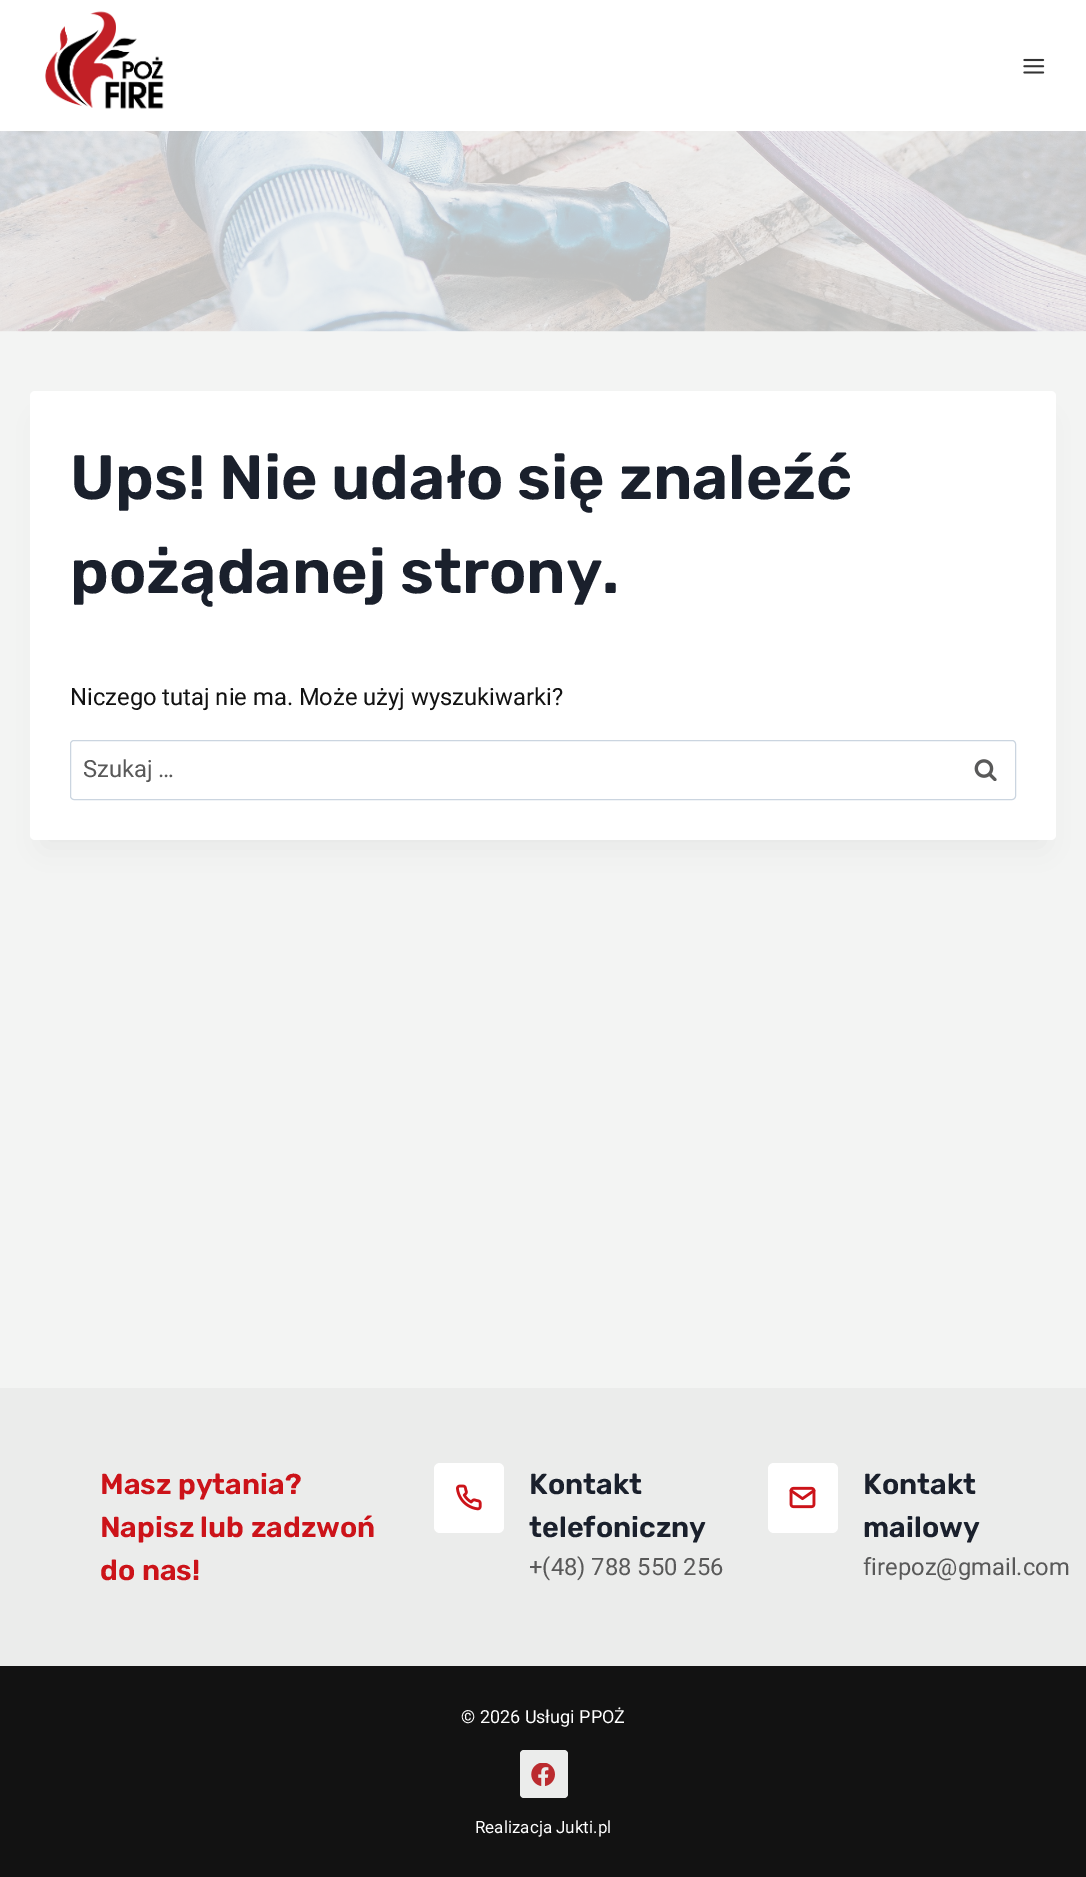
%!PS-Adobe-3.0
%%BoundingBox: 0 0 1086 1877
%%LanguageLevel: 3
%%Pages: 1
%%EndComments
%%BeginProlog
/setink { 3 { 255 div 3 1 roll } repeat setrgbcolor } def
/usefont { [ exch dup neg 0 0 3 -1 roll 0 0 ] selectfont } def
/drawtext { setink usefont moveto show } def
/fillbox { setink rectfill } def
/setalpha { dup .setfillconstantalpha .setstrokeconstantalpha } def
/rrect { 5 dict begin { /r /h /w /y /x } { exch def } forall
  x r add y moveto x w add y 2 copy h add r arct x w add y h add x 1 index r arct
  x y h add x y r arct x y 2 copy exch w add exch r arct closepath end } def
/softshadow { 12 dict begin { /a /b /q /h /w /y /x } { exch def } forall gsave /was 0 def
  9 -2 -9 { dup b mul 4 div /e exch def 1 sub .425 mul 2.718 exch exp 1 add a .99 .min exch div /now exch def
    1 1 now sub 1 was sub div sub setalpha /was now def
    w h .min e 2 mul add 0 gt { x e sub y e sub w e 2 mul add h e 2 mul add
      q e add b .6 mul add w h .min 2 div e add .min 0 .max rrect fill } if } for grestore end } def
/drawimage { 5 dict begin { /h /w /y /x /name } { exch def } forall
  gsave x y translate w h scale
  w h 8 [w 0 0 h 0 0] name (r) file false 3 colorimage grestore end } def
%%EndProlog
%%BeginSetup
<< /PageSize [1086 1877] /PageUsesTransparency true >> setpagedevice
%%EndSetup
%%Page: 1 1
0 .pushpdf14devicefilter
0 1877 translate 1 -1 scale
4 setmiterlimit
0 0 1086 1877 243 244 243 fillbox
0 0 1086 131 255 255 255 fillbox
(assets/img1.rgb) 45 11 119 98 drawimage
(assets/img2.rgb) 1023 58 22 16 drawimage
0 131 1086 200 238 239 238 fillbox
(assets/img3.rgb) 0 131 1086 201 drawimage
0 0 0 setink
43 423 1001 423 0 15.5 0.05 softshadow
255 255 255 setink
30 391 1026 449 5 rrect fill
(Ups! Nie udało się znaleźć) 70 499 /Rubik-SemiBold 62.5 26 32 44 drawtext
(pożądanej strony.) 70 593 /Rubik-SemiBold 62.5 26 32 44 drawtext
(Niczego tutaj nie ma. Może użyj wyszukiwarki?) 70 705 /Roboto-Regular 23.75 18 18 18 drawtext
203 213 224 setink
70.5 740.5 945 59 3.5 rrect stroke
(Szukaj …) 83 777 /Roboto-Regular 23.75 89 89 89 drawtext
(assets/img4.rgb) 974 759 23 22 drawimage
0 1388 1086 278 235 236 235 fillbox
(Masz pytania?) 100 1494 /Rubik-SemiBold 28.75 204 19 25 drawtext
(Napisz lub zadzwoń) 100 1537 /Rubik-SemiBold 28.75 204 19 25 drawtext
(do nas!) 100 1580 /Rubik-SemiBold 28.75 204 19 25 drawtext
255 255 255 setink
434 1463 70 70 6 rrect fill
(assets/img5.rgb) 456 1484 26 27 drawimage
(Kontakt) 529 1494 /Rubik-SemiBold 28.75 26 32 44 drawtext
(telefoniczny) 529 1537 /Rubik-SemiBold 28.75 26 32 44 drawtext
(+\(48\) 788 550 256) 529 1575 /Roboto-Regular 23.75 89 89 89 drawtext
255 255 255 setink
768 1463 70 70 6 rrect fill
(assets/img6.rgb) 789 1486 27 23 drawimage
(Kontakt) 863 1494 /Rubik-SemiBold 28.75 26 32 44 drawtext
(mailowy) 863 1537 /Rubik-SemiBold 28.75 26 32 44 drawtext
(firepoz@gmail.com) 863 1575 /Roboto-Regular 23.75 89 89 89 drawtext
0 1666 1086 211 18 18 18 fillbox
(© 2026 Usługi PPOŻ) 461 1723 /Roboto-Regular 18 255 255 255 drawtext
235 236 235 setink
520 1750 48 48 4 rrect fill
(assets/img7.rgb) 531 1763 24 23 drawimage
(Realizacja Jukti.pl) 475 1833 /Roboto-Regular 17 255 255 255 drawtext
.poppdf14devicefilter showpage
%%EOF
